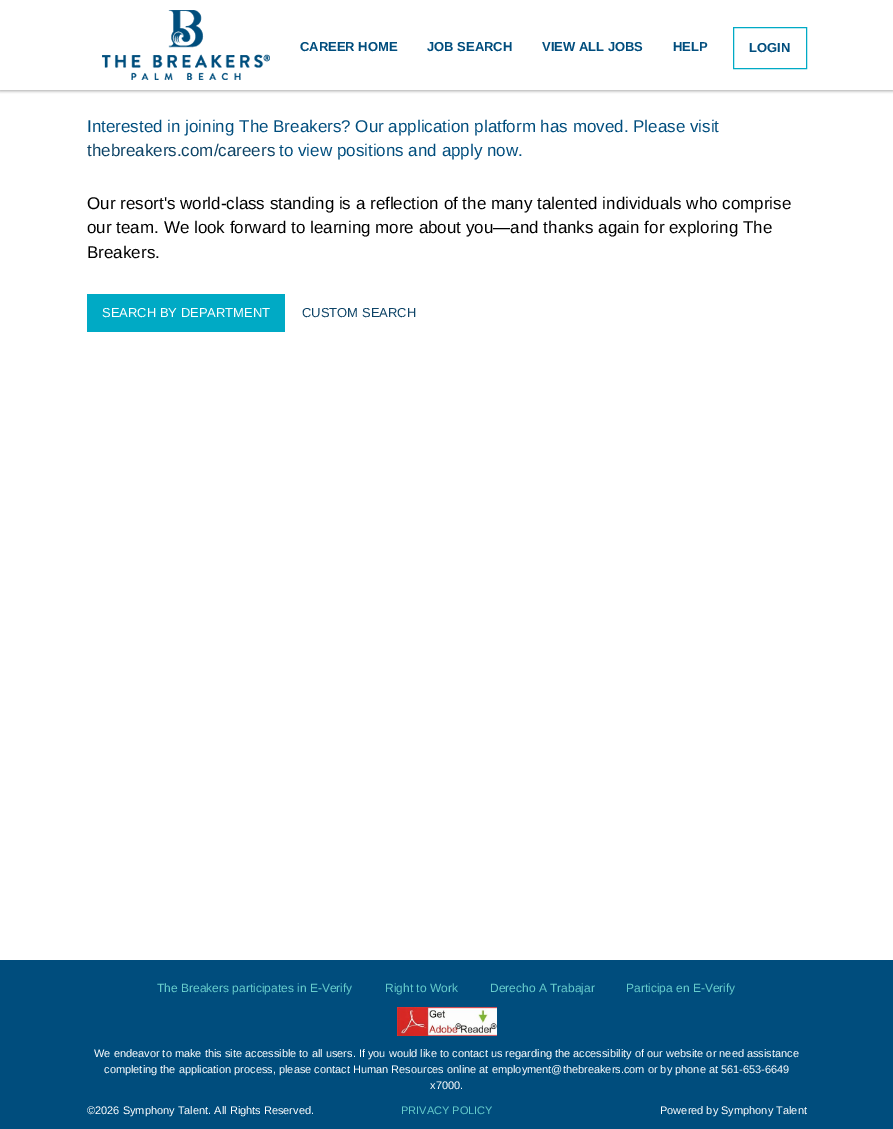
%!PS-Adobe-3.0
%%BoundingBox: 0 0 893 1129
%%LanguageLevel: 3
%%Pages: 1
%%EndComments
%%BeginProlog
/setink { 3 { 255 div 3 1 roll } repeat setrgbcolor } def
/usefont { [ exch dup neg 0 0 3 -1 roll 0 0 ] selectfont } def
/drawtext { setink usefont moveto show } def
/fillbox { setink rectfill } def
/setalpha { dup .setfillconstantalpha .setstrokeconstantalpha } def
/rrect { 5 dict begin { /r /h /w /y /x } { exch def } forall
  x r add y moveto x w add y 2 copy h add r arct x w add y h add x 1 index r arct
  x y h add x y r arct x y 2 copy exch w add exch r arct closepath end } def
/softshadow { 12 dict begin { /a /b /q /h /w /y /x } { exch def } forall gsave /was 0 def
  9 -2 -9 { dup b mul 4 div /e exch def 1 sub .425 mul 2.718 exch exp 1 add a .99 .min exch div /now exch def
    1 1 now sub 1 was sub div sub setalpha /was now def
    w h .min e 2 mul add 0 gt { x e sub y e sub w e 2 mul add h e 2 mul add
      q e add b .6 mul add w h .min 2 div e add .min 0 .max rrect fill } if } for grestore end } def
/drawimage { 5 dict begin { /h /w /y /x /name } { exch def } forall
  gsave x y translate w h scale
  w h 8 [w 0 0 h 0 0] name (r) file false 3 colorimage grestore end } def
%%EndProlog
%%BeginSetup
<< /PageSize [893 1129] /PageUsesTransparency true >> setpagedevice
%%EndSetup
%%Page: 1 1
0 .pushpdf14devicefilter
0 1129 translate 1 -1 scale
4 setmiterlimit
0 0 893 1129 255 255 255 fillbox
gsave
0 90 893 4 rectclip
170 170 170 setink
0 1 893 90 0 1.5 1 softshadow
grestore
(assets/img1.rgb) 102 10 168 70 drawimage
(CAREER HOME) 300 51 /LiberationSans-Bold 13 0 77 125 drawtext
(JOB SEARCH) 427 51 /LiberationSans-Bold 13 0 77 125 drawtext
(VIEW ALL JOBS) 542 51 /LiberationSans-Bold 13 0 77 125 drawtext
(HELP) 673 51 /LiberationSans-Bold 13 0 77 125 drawtext
0 170 197 setink
733.5 27.5 73 41 rectstroke
(LOGIN) 749 52 /LiberationSans-Bold 13 0 77 125 drawtext
(Interested in joining The Breakers? Our application platform has moved. Please visit) 87 132 /LiberationSans-Regular 17 0 77 125 drawtext
(thebreakers.com/careers) 87 156 /LiberationSans-Regular 17 13 67 102 drawtext
(to view positions and apply now.) 279 156 /LiberationSans-Regular 17 0 77 125 drawtext
(Our resort's world-class standing is a reflection of the many talented individuals who comprise) 87 209 /LiberationSans-Regular 17 0 0 0 drawtext
(our team. We look forward to learning more about you—and thanks again for exploring The) 87 233 /LiberationSans-Regular 17 0 0 0 drawtext
(Breakers.) 87 258 /LiberationSans-Regular 17 0 0 0 drawtext
87 294 198 38 0 170 197 fillbox
(SEARCH BY DEPARTMENT) 102 317 /LiberationSans-Regular 13 255 255 255 drawtext
(CUSTOM SEARCH) 302 317 /LiberationSans-Regular 13 13 67 102 drawtext
0 960 893 169 0 77 125 fillbox
(The Breakers participates in E-Verify) 157 992 /LiberationSans-Regular 12 102 204 204 drawtext
(Right to Work) 385 992 /LiberationSans-Regular 12 102 204 204 drawtext
(Derecho A Trabajar) 490 992 /LiberationSans-Regular 12 102 204 204 drawtext
(Participa en E-Verify) 626 992 /LiberationSans-Regular 12 102 204 204 drawtext
(assets/img2.rgb) 397 1007 100 29 drawimage
(We endeavor to make this site accessible to all users. If you would like to contact us regarding the accessibility of our website or need assistance) 94 1057 /LiberationSans-Regular 11 255 255 255 drawtext
(completing the application process, please contact Human Resources online at employment@thebreakers.com or by phone at 561-653-6649) 104 1073 /LiberationSans-Regular 11 255 255 255 drawtext
(x7000.) 430 1089 /LiberationSans-Regular 11 255 255 255 drawtext
(©2026 Symphony Talent. All Rights Reserved.) 87 1114 /LiberationSans-Regular 11 255 255 255 drawtext
(PRIVACY POLICY) 401 1114 /LiberationSans-Regular 11 102 204 204 drawtext
(Powered by Symphony Talent) 660 1114 /LiberationSans-Regular 11 255 255 255 drawtext
.poppdf14devicefilter showpage
%%EOF
